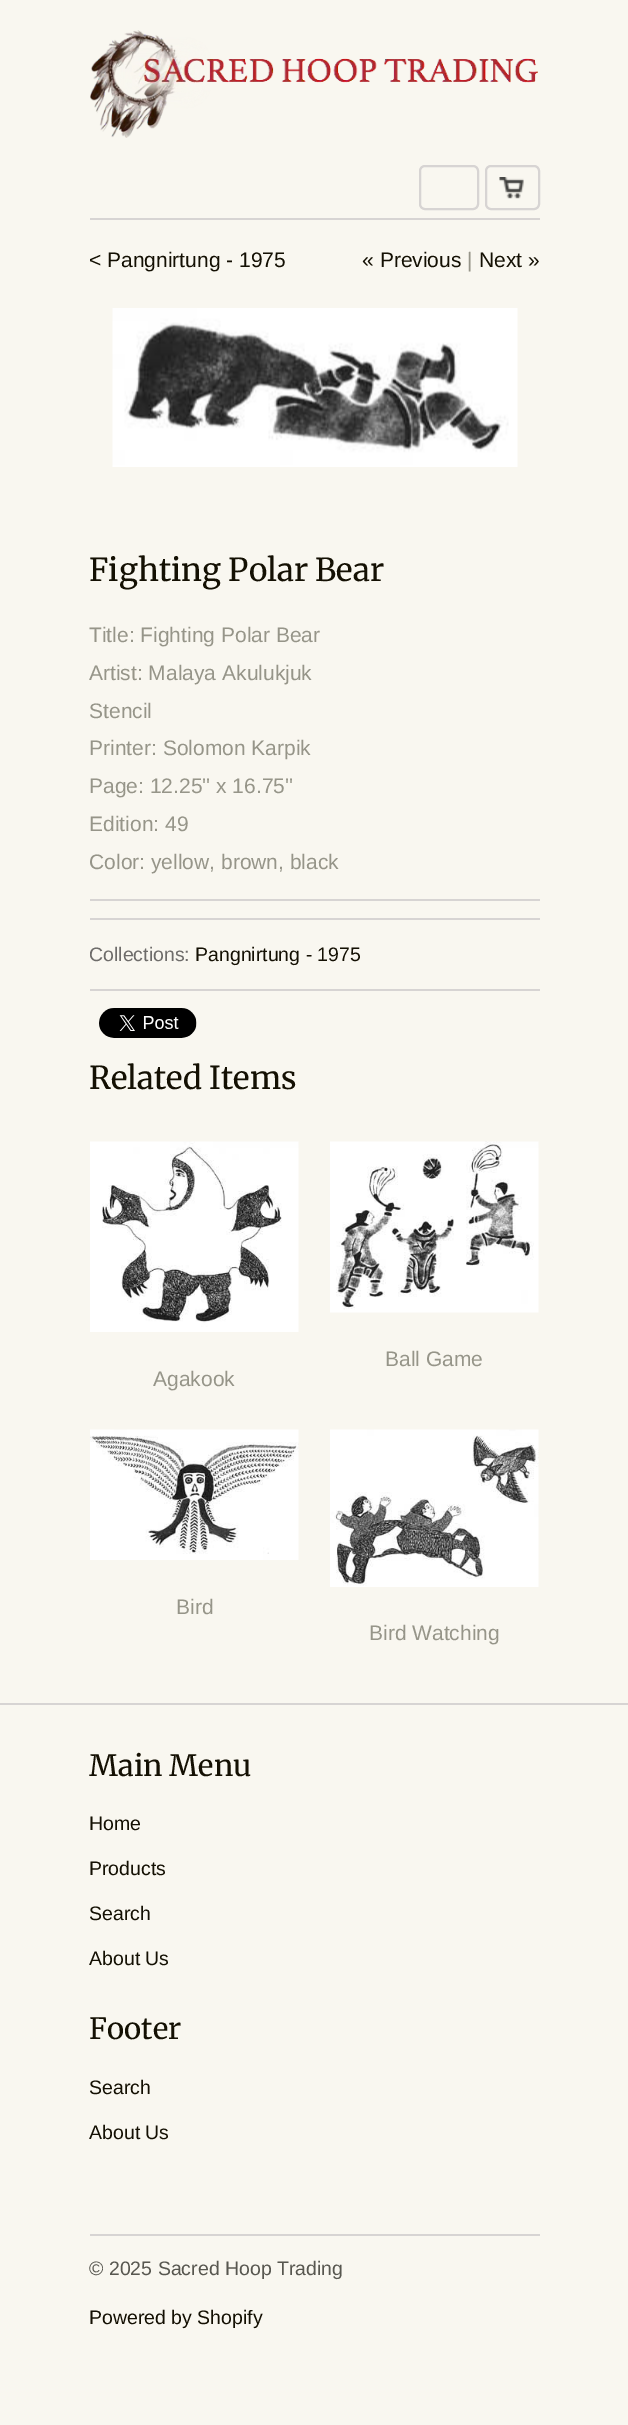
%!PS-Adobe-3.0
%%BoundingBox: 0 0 628 2425
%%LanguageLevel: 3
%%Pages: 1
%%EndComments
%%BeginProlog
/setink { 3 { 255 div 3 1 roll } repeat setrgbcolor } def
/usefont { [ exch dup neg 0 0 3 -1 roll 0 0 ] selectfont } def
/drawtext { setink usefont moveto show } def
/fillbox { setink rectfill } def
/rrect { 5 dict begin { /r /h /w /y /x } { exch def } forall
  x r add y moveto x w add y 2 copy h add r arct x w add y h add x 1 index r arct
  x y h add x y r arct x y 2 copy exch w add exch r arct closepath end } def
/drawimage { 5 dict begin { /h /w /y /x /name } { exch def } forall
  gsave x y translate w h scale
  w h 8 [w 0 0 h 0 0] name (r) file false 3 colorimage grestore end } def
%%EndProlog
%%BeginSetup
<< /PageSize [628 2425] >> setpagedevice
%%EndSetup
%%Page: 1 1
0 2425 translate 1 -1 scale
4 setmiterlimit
0 0 628 2425 249 247 240 fillbox
90 218 450 2 215 212 211 fillbox
(assets/img1.rgb) 90 30 448 108 drawimage
2 setlinewidth
420 166 58 43 5 rrect stroke
(assets/img2.rgb) 499 177 25 22 drawimage
486 166 53 43 5 rrect stroke
(< Pangnirtung - 1975) 89 267 /LiberationSans-Regular 21 20 16 3 drawtext
(« Previous) 362 267 /LiberationSans-Regular 21 20 16 3 drawtext
(|) 467 267 /LiberationSans-Regular 21 150 149 137 drawtext
(Next ») 479 267 /LiberationSans-Regular 21 20 16 3 drawtext
(assets/img3.rgb) 112 308 406 159 drawimage
(Fighting Polar Bear) 89 581 /Merriweather-Regular 31.5 20 16 3 drawtext
(Title: Fighting Polar Bear) 89 642 /LiberationSans-Regular 21 150 149 137 drawtext
(Artist: Malaya Akulukjuk) 89 680 /LiberationSans-Regular 21 150 149 137 drawtext
(Stencil) 89 718 /LiberationSans-Regular 21 150 149 137 drawtext
(Printer: Solomon Karpik) 89 755 /LiberationSans-Regular 21 150 149 137 drawtext
(Page: 12.25'' x 16.75'') 89 793 /LiberationSans-Regular 21 150 149 137 drawtext
(Edition: 49) 89 831 /LiberationSans-Regular 21 150 149 137 drawtext
(Color: yellow, brown, black) 89 869 /LiberationSans-Regular 21 150 149 137 drawtext
90 899 450 2 215 212 211 fillbox
90 918 450 2 215 212 211 fillbox
(Collections:) 89 961 /LiberationSans-Regular 19.5 110 108 106 drawtext
(Pangnirtung - 1975) 195 961 /LiberationSans-Regular 19.5 20 16 3 drawtext
90 989 450 2 215 212 211 fillbox
(assets/img4.rgb) 99 1008 98 30 drawimage
(Related Items) 89 1089 /Merriweather-Regular 31.5 20 16 3 drawtext
(assets/img5.rgb) 330 1141 209 172 drawimage
(Ball Game) 385 1366 /LiberationSans-Regular 21 150 149 137 drawtext
(assets/img6.rgb) 90 1141 209 191 drawimage
(Agakook) 153 1386 /LiberationSans-Regular 21 150 149 137 drawtext
(assets/img7.rgb) 90 1429 209 131 drawimage
(Bird) 176 1614 /LiberationSans-Regular 21 150 149 137 drawtext
(assets/img8.rgb) 330 1429 209 158 drawimage
(Bird Watching) 369 1640 /LiberationSans-Regular 21 150 149 137 drawtext
0 1703 628 2 215 212 211 fillbox
(Main Menu) 89 1776 /Merriweather-Regular 29.25 20 16 3 drawtext
(Home) 89 1830 /LiberationSans-Regular 19.5 20 16 3 drawtext
(Products) 89 1875 /LiberationSans-Regular 19.5 20 16 3 drawtext
(Search) 89 1920 /LiberationSans-Regular 19.5 20 16 3 drawtext
(About Us) 89 1965 /LiberationSans-Regular 19.5 20 16 3 drawtext
(Footer) 89 2039 /Merriweather-Regular 29.25 20 16 3 drawtext
(Search) 89 2094 /LiberationSans-Regular 19.5 20 16 3 drawtext
(About Us) 89 2139 /LiberationSans-Regular 19.5 20 16 3 drawtext
90 2234 450 2 215 212 211 fillbox
(© 2025 Sacred Hoop Trading) 89 2275 /LiberationSans-Regular 19.5 88 87 80 drawtext
(Powered by Shopify) 89 2324 /LiberationSans-Regular 19.5 20 16 3 drawtext
showpage
%%EOF
